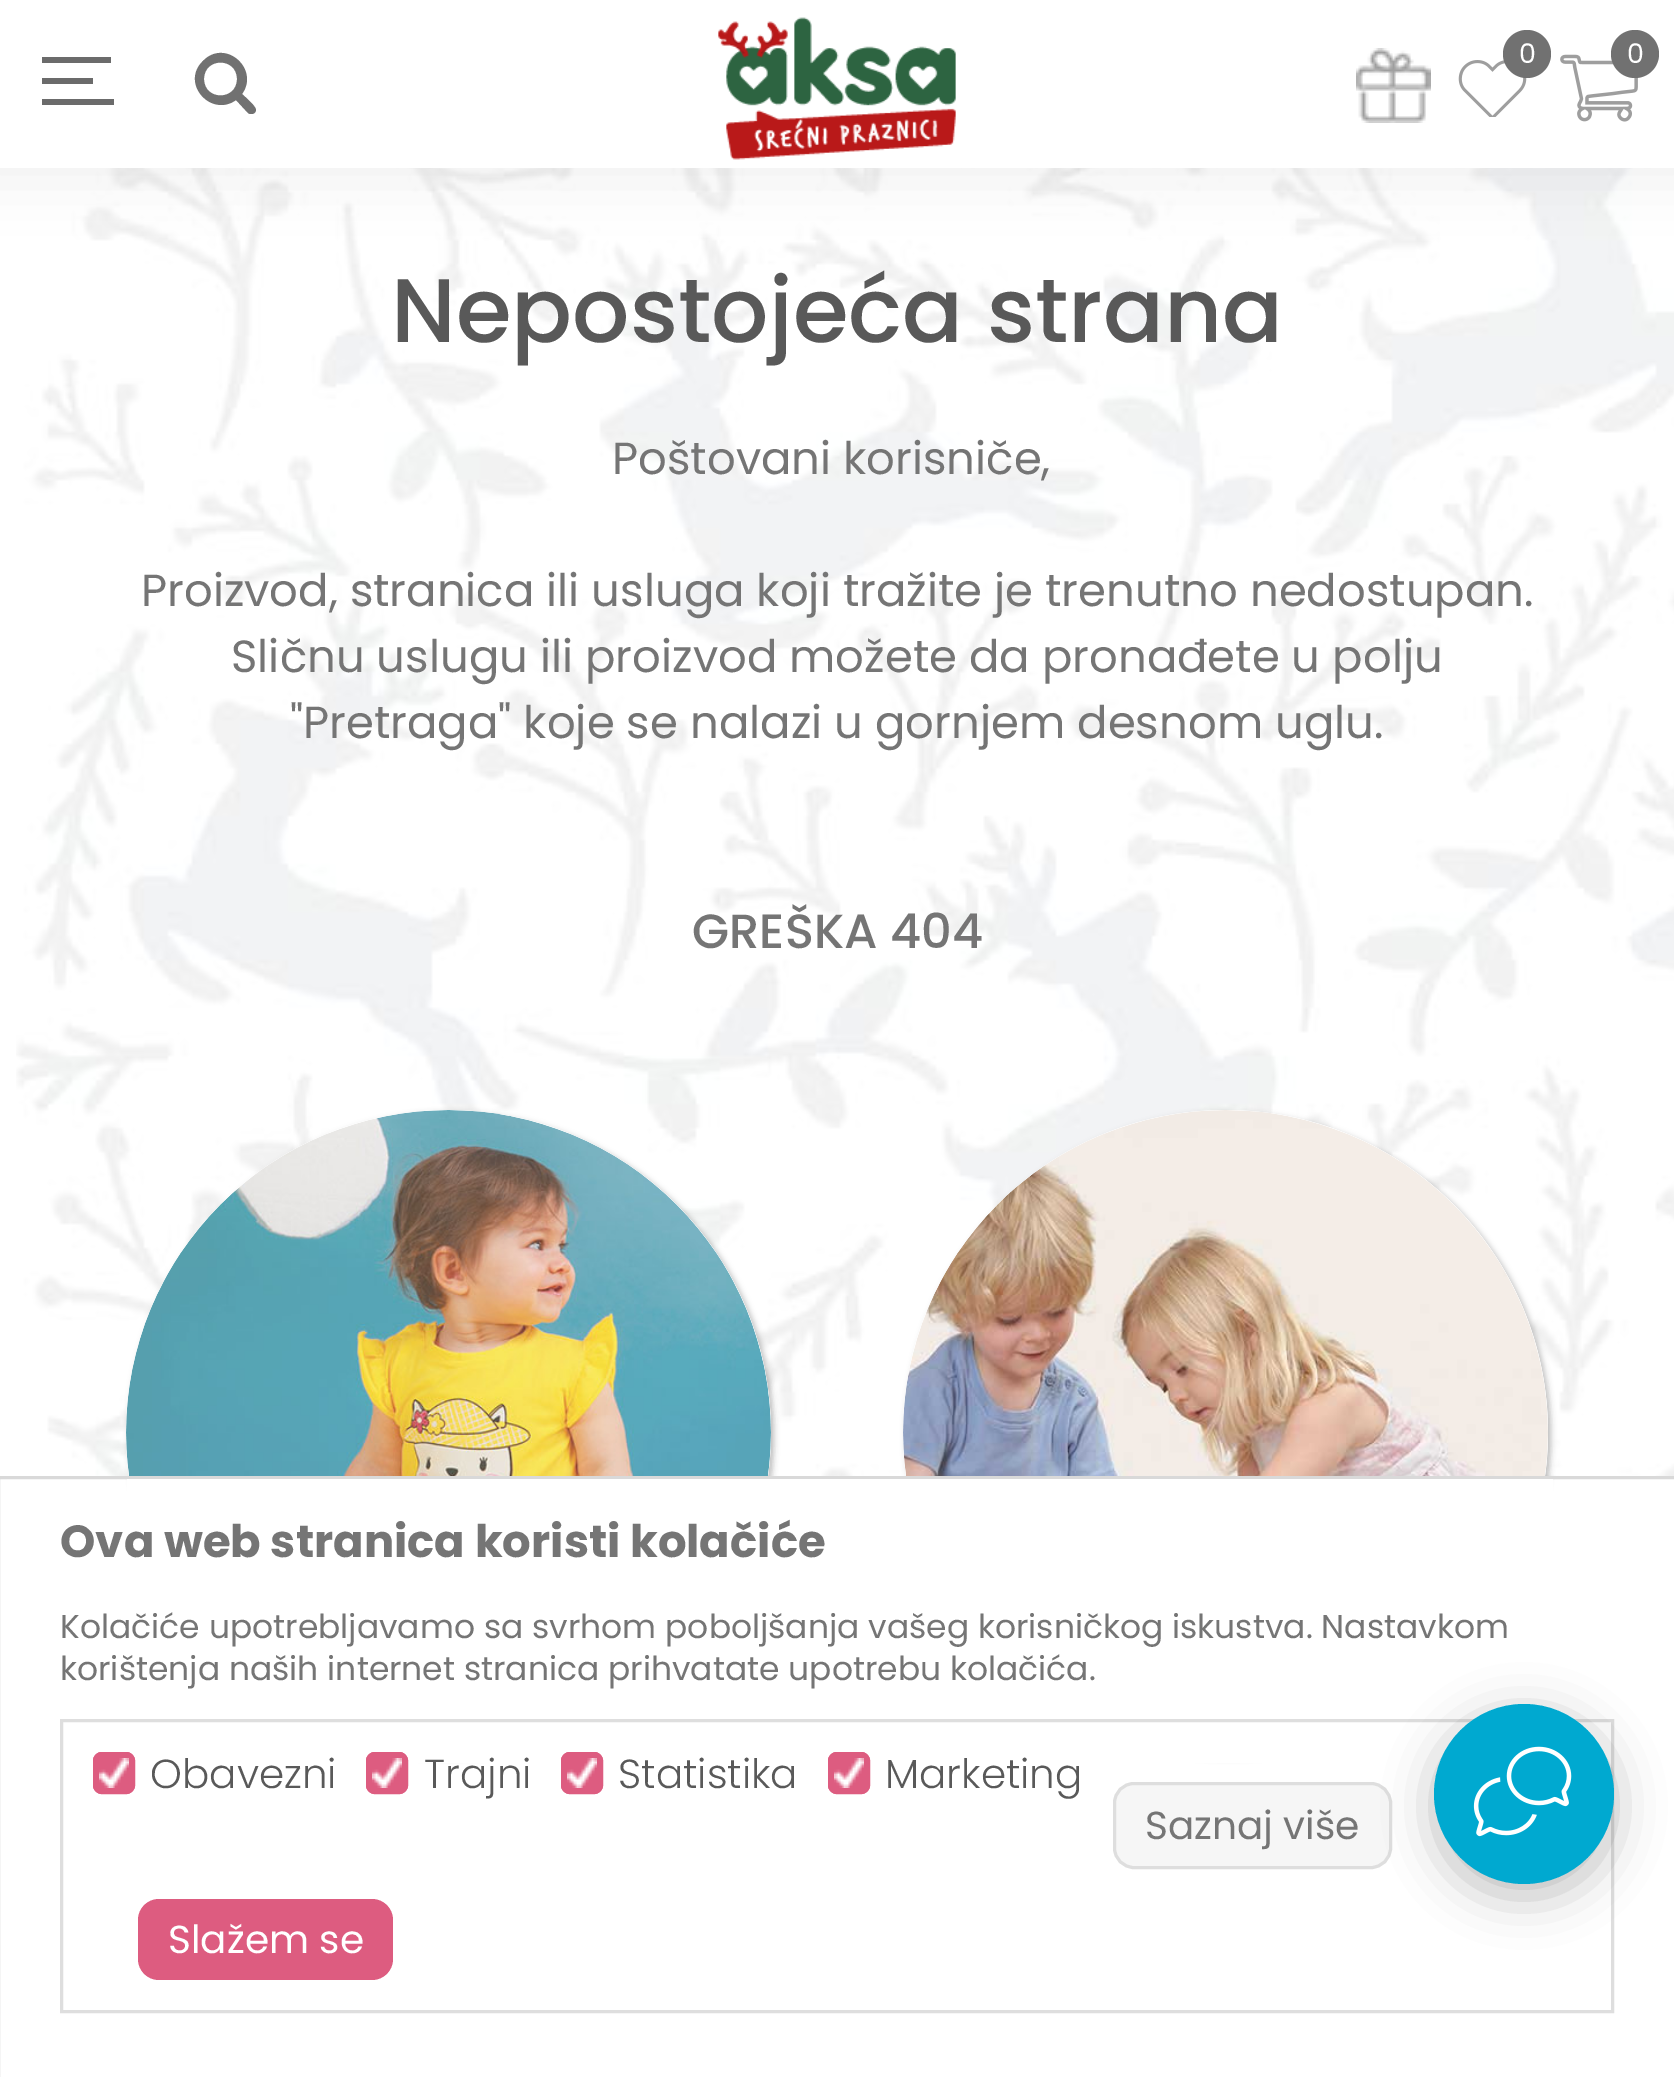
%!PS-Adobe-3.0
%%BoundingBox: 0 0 1674 2077
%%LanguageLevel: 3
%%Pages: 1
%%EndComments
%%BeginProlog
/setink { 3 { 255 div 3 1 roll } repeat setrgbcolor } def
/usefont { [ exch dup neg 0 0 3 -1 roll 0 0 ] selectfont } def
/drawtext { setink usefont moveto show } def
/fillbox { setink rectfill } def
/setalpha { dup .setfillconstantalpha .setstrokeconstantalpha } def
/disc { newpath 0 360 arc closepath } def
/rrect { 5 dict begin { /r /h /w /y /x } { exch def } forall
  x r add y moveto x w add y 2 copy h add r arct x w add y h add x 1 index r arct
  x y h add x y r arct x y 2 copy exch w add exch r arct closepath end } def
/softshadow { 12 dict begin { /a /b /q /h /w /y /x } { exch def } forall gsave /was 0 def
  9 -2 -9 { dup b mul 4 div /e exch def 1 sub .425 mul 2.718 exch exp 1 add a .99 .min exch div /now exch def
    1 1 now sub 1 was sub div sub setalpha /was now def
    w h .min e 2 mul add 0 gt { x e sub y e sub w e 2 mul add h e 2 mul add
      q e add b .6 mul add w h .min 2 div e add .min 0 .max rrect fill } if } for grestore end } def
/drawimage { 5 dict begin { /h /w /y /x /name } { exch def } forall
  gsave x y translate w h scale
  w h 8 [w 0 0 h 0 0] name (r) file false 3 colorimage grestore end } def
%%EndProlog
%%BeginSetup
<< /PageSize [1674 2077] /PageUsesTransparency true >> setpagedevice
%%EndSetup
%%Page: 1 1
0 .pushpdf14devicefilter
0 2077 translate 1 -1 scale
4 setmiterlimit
0 0 1674 2077 255 255 255 fillbox
(assets/img1.rgb) 16 168 1658 1308 drawimage
0 0 0 setink
-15 -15 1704 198 0 30 0.05 softshadow
0 0 1674 168 255 255 255 fillbox
113 113 113 setink
237 79 moveto 237 101 204 101 204 79 curveto 204 57 237 57 237 79 curveto closepath 256 110 moveto 256 106 245 97 242 94 curveto 260 69 225 38 203 61 curveto 180 83 211 118 236 100 curveto 248 113 lineto 249 114 250 114 252 114 curveto 254 114 256 112 256 110 curveto closepath fill
(assets/img2.rgb) 718 17 238 143 drawimage
(assets/img3.rgb) 1356 48 75 75 drawimage
(assets/img4.rgb) 1458 60 69 57 drawimage
1527 54 24 disc fill
(0) 1519 63 /Poppins-Regular 27 255 255 255 drawtext
(assets/img5.rgb) 1560 54 78 68 drawimage
113 113 113 setink
1635 54 24 disc fill
(0) 1627 63 /Poppins-Regular 27 255 255 255 drawtext
42 78 51 6 107 107 107 fillbox
42 57 69 6 107 107 107 fillbox
42 99 72 6 107 107 107 fillbox
(Nepostojeća strana) 391 342 /Poppins-Medium 90 89 89 89 drawtext
(Poštovani korisniče,) 612 474 /Poppins-Regular 45 117 117 117 drawtext
(Proizvod, stranica ili usluga koji tražite je trenutno nedostupan.) 141 606 /Poppins-Regular 45 117 117 117 drawtext
(Sličnu uslugu ili proizvod možete da pronađete u polju) 231 672 /Poppins-Regular 45 117 117 117 drawtext
("Pretraga" koje se nalazi u gornjem desnom uglu.) 290 738 /Poppins-Regular 45 117 117 117 drawtext
(GREŠKA 404) 692 948 /Poppins-Medium 48 117 117 117 drawtext
0 0 0 setink
129 1113 645 645 322.5 3 0.25 softshadow
255 255 255 setink
448.5 1432.5 322.5 disc fill
(assets/img6.rgb) 126 1110 645 366 drawimage
0 0 0 setink
906 1113 645 645 322.5 3 0.25 softshadow
255 255 255 setink
1225.5 1432.5 322.5 disc fill
(assets/img7.rgb) 903 1110 645 366 drawimage
217 217 217 setink
3 setlinewidth
-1.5 1477.5 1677 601 rectstroke
127 1479 1426 284 255 255 255 fillbox
(Ova web stranica koristi kolačiće) 60 1557 /Poppins-Bold 45 117 117 117 drawtext
(Kolačiće upotrebljavamo sa svrhom poboljšanja vašeg korisničkog iskustva. Nastavkom) 60 1638 /Poppins-Regular 33 117 117 117 drawtext
(korištenja naših internet stranica prihvatate upotrebu kolačića.) 60 1680 /Poppins-Regular 33 117 117 117 drawtext
222 222 222 setink
61.5 1720.5 1551 291 rectstroke
221 92 128 setink
93 1752 42 42 9 rrect fill
(assets/img8.rgb) 99 1758 30 30 drawimage
94.5 1753.5 39 39 7.5 rrect stroke
(Obavezni) 150 1788 /Poppins-Light 40.5 89 89 89 drawtext
221 92 128 setink
366 1752 42 42 9 rrect fill
(assets/img8.rgb) 372 1758 30 30 drawimage
367.5 1753.5 39 39 7.5 rrect stroke
(Trajni) 424 1788 /Poppins-Light 40.5 89 89 89 drawtext
221 92 128 setink
561 1752 42 42 9 rrect fill
(assets/img8.rgb) 567 1758 30 30 drawimage
562.5 1753.5 39 39 7.5 rrect stroke
(Statistika) 618 1788 /Poppins-Light 40.5 89 89 89 drawtext
221 92 128 setink
828 1752 42 42 9 rrect fill
(assets/img8.rgb) 834 1758 30 30 drawimage
829.5 1753.5 39 39 7.5 rrect stroke
(Marketing) 885 1788 /Poppins-Light 40.5 89 89 89 drawtext
246 246 246 setink
1114.5 1783.5 276 84 19.5 rrect gsave fill grestore
222 222 222 setink
stroke
(Saznaj više) 1145 1839 /Poppins-Regular 39 117 117 117 drawtext
221 92 128 setink
138 1899 255 81 21 rrect fill
(Slažem se) 168 1953 /Poppins-Regular 39 255 255 255 drawtext
0 0 0 setink
1434 1716 180 180 90 24 0.25 softshadow
0 169 208 setink
1524 1794 90 disc fill
(assets/img9.rgb) 1473 1746 99 91 drawimage
.poppdf14devicefilter showpage
%%EOF
